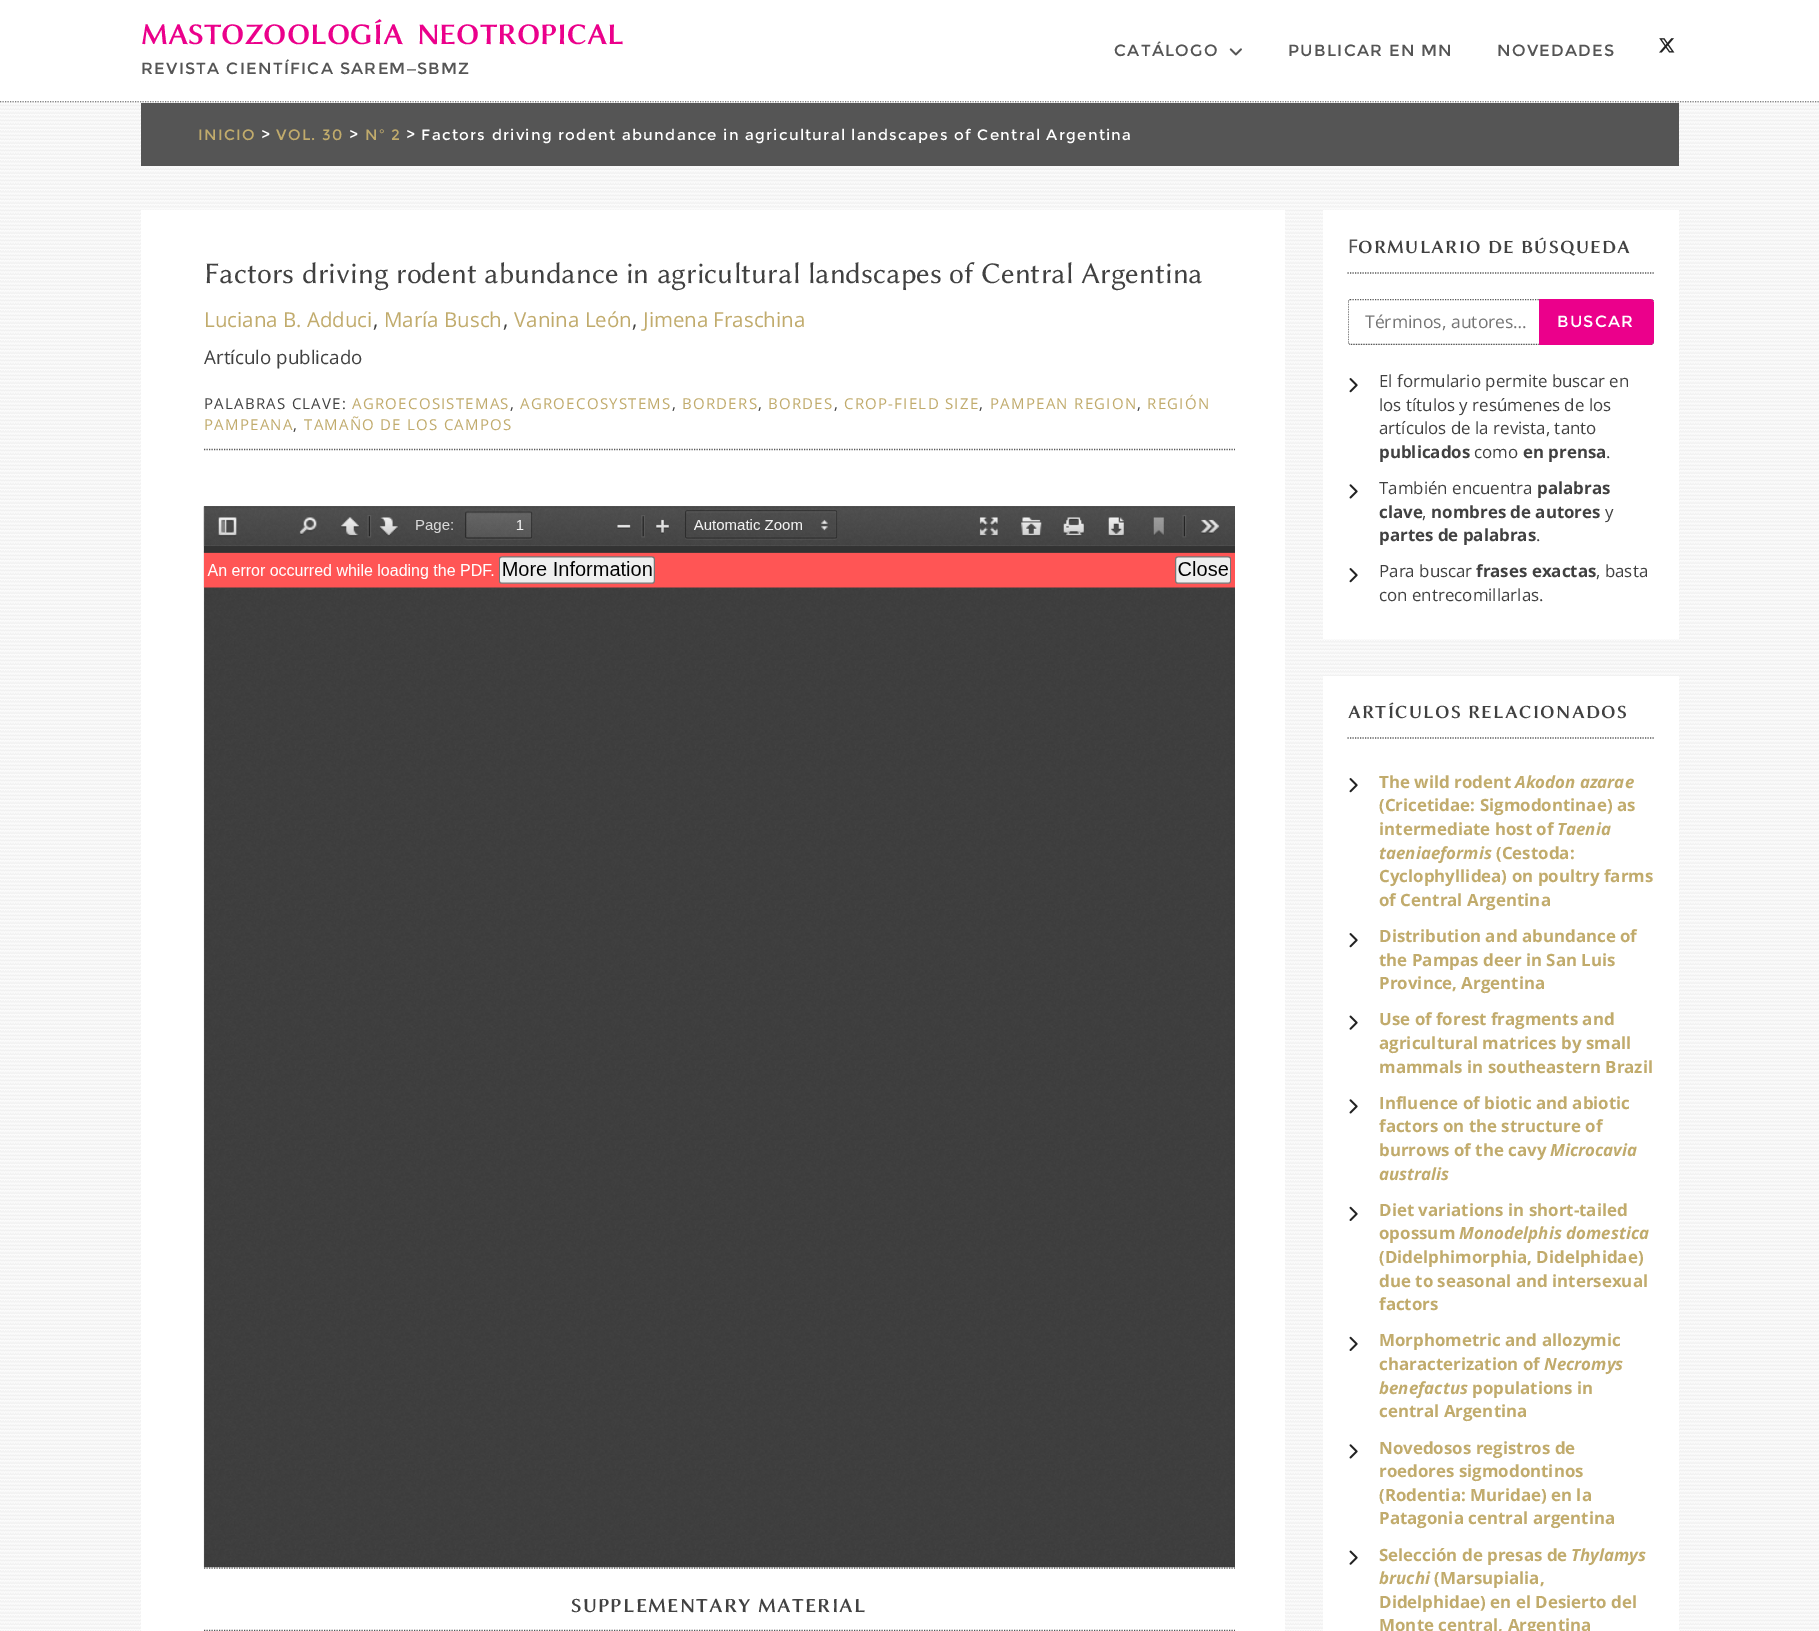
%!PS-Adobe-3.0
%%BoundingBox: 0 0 1819 1631
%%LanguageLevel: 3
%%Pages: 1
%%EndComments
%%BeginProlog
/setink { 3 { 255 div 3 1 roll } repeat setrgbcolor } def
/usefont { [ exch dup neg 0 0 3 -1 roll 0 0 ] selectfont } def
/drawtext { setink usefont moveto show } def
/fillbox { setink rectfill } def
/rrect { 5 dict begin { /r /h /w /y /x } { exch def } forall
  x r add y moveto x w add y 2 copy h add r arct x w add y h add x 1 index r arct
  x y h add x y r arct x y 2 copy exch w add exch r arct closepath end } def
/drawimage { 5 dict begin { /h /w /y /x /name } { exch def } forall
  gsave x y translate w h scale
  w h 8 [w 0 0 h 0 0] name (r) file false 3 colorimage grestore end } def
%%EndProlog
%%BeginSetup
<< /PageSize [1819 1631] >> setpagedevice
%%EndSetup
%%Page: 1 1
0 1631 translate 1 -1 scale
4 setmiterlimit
0 0 1819 1631 255 255 255 fillbox
85 85 85 setink
1.2 setlinewidth
[1.25 1.25] 0 setdash
0 102 moveto 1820 102 lineto stroke
/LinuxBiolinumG-Bold 30 usefont
235 0 139 setink
141 44 moveto 6 0 32 (MASTOZOOLOGÍA NEOTROPICAL) widthshow
/Montserrat-Regular 16.25 usefont
85 85 85 setink
141 74 moveto 1.25 0 (REVISTA CIENTÍFICA SAREM) ashow
/LiberationSans-Regular 16.25 usefont
407 74 moveto 1.25 0 (–) ashow
/Montserrat-Regular 16.25 usefont
417 74 moveto 1.25 0 (SBMZ) ashow
1114 56 moveto 1.25 0 (CATÁLOGO) ashow
(assets/img1.rgb) 1229 48 13 8 drawimage
1288 56 moveto 1.25 0 (PUBLICAR EN MN) ashow
1497 56 moveto 1.25 0 (NOVEDADES) ashow
(assets/img2.rgb) 1659 38 16 15 drawimage
(assets/img3.rgb) 0 102 1819 1529 drawimage
141 103 1538 63 85 85 85 fillbox
/Montserrat-Regular 15 usefont
193 171 108 setink
198 140 moveto 1.25 0 (INICIO) ashow
255 255 255 setink
261 140 moveto 1.25 0 (>) ashow
193 171 108 setink
276 140 moveto 1.25 0 (VOL. 30) ashow
255 255 255 setink
349 140 moveto 1.25 0 (>) ashow
193 171 108 setink
365 140 moveto 1.25 0 (Nº 2) ashow
255 255 255 setink
406 140 moveto 1.25 0 (> Factors driving rodent abundance in agricultural landscapes of Central Argentina) ashow
141 210 1144 1421 255 255 255 fillbox
(Factors driving rodent abundance in agricultural landscapes of Central Argentina) 204 283 /LinuxBiolinumG-Regular 30 65 65 65 drawtext
85 85 85 setink
204 449.5 moveto 1235 449.5 lineto stroke
(Luciana B. Adduci) 204 327 /OpenSans-Regular 20.5 193 171 108 drawtext
(,) 373 327 /OpenSans-Regular 20.5 65 65 65 drawtext
(María Busch) 384 327 /OpenSans-Regular 20.5 193 171 108 drawtext
(,) 503 327 /OpenSans-Regular 20.5 65 65 65 drawtext
(Vanina León) 514 327 /OpenSans-Regular 20.5 193 171 108 drawtext
(,) 632 327 /OpenSans-Regular 20.5 65 65 65 drawtext
(Jimena Fraschina) 643 327 /OpenSans-Regular 20.5 193 171 108 drawtext
(Artículo publicado) 204 364 /OpenSans-Regular 18.75 65 65 65 drawtext
/OpenSans-Regular 15 usefont
204 409 moveto 1.25 0 (PALABRAS CLAVE:) ashow
193 171 108 setink
352 409 moveto 1.25 0 (AGROECOSISTEMAS) ashow
65 65 65 setink
510 409 moveto 1.25 0 (,) ashow
193 171 108 setink
520 409 moveto 1.25 0 (AGROECOSYSTEMS) ashow
65 65 65 setink
672 409 moveto 1.25 0 (,) ashow
193 171 108 setink
682 409 moveto 1.25 0 (BORDERS) ashow
65 65 65 setink
758 409 moveto 1.25 0 (,) ashow
193 171 108 setink
768 409 moveto 1.25 0 (BORDES) ashow
65 65 65 setink
834 409 moveto 1.25 0 (,) ashow
193 171 108 setink
844 409 moveto 1.25 0 (CROP-FIELD SIZE) ashow
65 65 65 setink
979 409 moveto 1.25 0 (,) ashow
193 171 108 setink
990 409 moveto 1.25 0 (PAMPEAN REGION) ashow
65 65 65 setink
1137 409 moveto 1.25 0 (,) ashow
193 171 108 setink
1147 409 moveto 1.25 0 (REGIÓN) ashow
204 430 moveto 1.25 0 (PAMPEANA) ashow
65 65 65 setink
293 430 moveto 1.25 0 (,) ashow
193 171 108 setink
304 430 moveto 1.25 0 (TAMAÑO DE LOS CAMPOS) ashow
85 85 85 setink
204 1568 moveto 1235 1568 lineto stroke
(assets/img4.rgb) 203 506 1032 1062 drawimage
204 1630.5 moveto 1235 1630.5 lineto stroke
/LinuxBiolinumG-Bold 20 usefont
65 65 65 setink
571 1612 moveto 1.25 0 (SUPPLEMENTARY MATERIAL) ashow
1323 210 356 429 255 255 255 fillbox
85 85 85 setink
1347.5 273 moveto 1654 273 lineto stroke
/NotoSans-Regular 18.75 usefont
1348 253 moveto 1.25 0 (F) ashow
/LinuxBiolinumG-Bold 18.75 usefont
65 65 65 setink
1358 253 moveto 1.25 0 (ORMULARIO DE BÚSQUEDA) ashow
gsave
1348 299 306 46 4 rrect clip newpath
85 85 85 setink
1350 299.5 moveto 1651 299.5 lineto 1652.5 299.5 1653 300 1653 301 curveto 1653 342.5 lineto 1653 343.5 1652.5 344.5 1651 344.5 curveto 1350 344.5 lineto 1349 344.5 1348 343.5 1348 342.5 curveto 1348 301 lineto 1348 300 1349 299.5 1350 299.5 curveto closepath stroke
grestore
(Términos, autores…) 1365 328 /OpenSans-Regular 17.5 117 117 117 drawtext
235 0 139 setink
1539 299 moveto 1650 299 lineto 1652 299 1654 301 1654 303 curveto 1654 341 lineto 1654 343 1652 345 1650 345 curveto 1539 345 lineto closepath fill
/Montserrat-Regular 16.25 usefont
255 255 255 setink
1557 327 moveto 1.25 0 (BUSCAR) ashow
(assets/img5.rgb) 1349 378 9 15 drawimage
(El formulario permite buscar en) 1379 387 /OpenSans-Regular 16.9 65 65 65 drawtext
(los títulos y resúmenes de los) 1379 411 /OpenSans-Regular 16.9 65 65 65 drawtext
(artículos de la revista, tanto) 1379 434 /OpenSans-Regular 16.9 65 65 65 drawtext
(publicados) 1379 458 /OpenSans-Bold 16.9 65 65 65 drawtext
(como) 1474 458 /OpenSans-Regular 16.9 65 65 65 drawtext
(en prensa) 1523 458 /OpenSans-Bold 16.9 65 65 65 drawtext
(.) 1606 458 /OpenSans-Regular 16.9 65 65 65 drawtext
(assets/img6.rgb) 1349 484 9 15 drawimage
(También encuentra) 1379 494 /OpenSans-Regular 16.9 65 65 65 drawtext
(palabras) 1537 494 /OpenSans-Bold 16.9 65 65 65 drawtext
(clave) 1379 518 /OpenSans-Bold 16.9 65 65 65 drawtext
(,) 1422 518 /OpenSans-Regular 16.9 65 65 65 drawtext
(nombres de autores) 1431 518 /OpenSans-Bold 16.9 65 65 65 drawtext
(y) 1605 518 /OpenSans-Regular 16.9 65 65 65 drawtext
(partes de palabras) 1379 541 /OpenSans-Bold 16.9 65 65 65 drawtext
(.) 1536 541 /OpenSans-Regular 16.9 65 65 65 drawtext
(assets/img5.rgb) 1349 568 9 15 drawimage
(Para buscar) 1379 577 /OpenSans-Regular 16.9 65 65 65 drawtext
(frases exactas) 1476 577 /OpenSans-Bold 16.9 65 65 65 drawtext
(, basta) 1596 577 /OpenSans-Regular 16.9 65 65 65 drawtext
(con entrecomillarlas.) 1379 601 /OpenSans-Regular 16.9 65 65 65 drawtext
1323 676 356 955 255 255 255 fillbox
85 85 85 setink
1347.5 738 moveto 1654 738 lineto stroke
/LinuxBiolinumG-Bold 18.75 usefont
65 65 65 setink
1348 718 moveto 1.25 0 (ARTÍCULOS RELACIONADOS) ashow
(assets/img5.rgb) 1349 778 9 15 drawimage
(The wild rodent) 1379 788 /OpenSans-Bold 16.9 193 171 108 drawtext
(Akodon azarae) 1515 788 /OpenSans-BoldItalic 16.9 193 171 108 drawtext
(\(Cricetidae: Sigmodontinae\) as) 1379 811 /OpenSans-Bold 16.9 193 171 108 drawtext
(intermediate host of) 1379 835 /OpenSans-Bold 16.9 193 171 108 drawtext
(Taenia) 1557 835 /OpenSans-BoldItalic 16.9 193 171 108 drawtext
(taeniaeformis) 1379 859 /OpenSans-BoldItalic 16.9 193 171 108 drawtext
(\(Cestoda:) 1496 859 /OpenSans-Bold 16.9 193 171 108 drawtext
(Cyclophyllidea\) on poultry farms) 1379 882 /OpenSans-Bold 16.9 193 171 108 drawtext
(of Central Argentina) 1379 906 /OpenSans-Bold 16.9 193 171 108 drawtext
(assets/img5.rgb) 1349 933 9 15 drawimage
(Distribution and abundance of) 1379 942 /OpenSans-Bold 16.9 193 171 108 drawtext
(the Pampas deer in San Luis) 1379 966 /OpenSans-Bold 16.9 193 171 108 drawtext
(Province, Argentina) 1379 989 /OpenSans-Bold 16.9 193 171 108 drawtext
(assets/img7.rgb) 1349 1015 9 15 drawimage
(Use of forest fragments and) 1379 1025 /OpenSans-Bold 16.9 193 171 108 drawtext
(agricultural matrices by small) 1379 1049 /OpenSans-Bold 16.9 193 171 108 drawtext
(mammals in southeastern Brazil) 1379 1073 /OpenSans-Bold 16.9 193 171 108 drawtext
(assets/img6.rgb) 1349 1099 9 15 drawimage
(Influence of biotic and abiotic) 1379 1109 /OpenSans-Bold 16.9 193 171 108 drawtext
(factors on the structure of) 1379 1132 /OpenSans-Bold 16.9 193 171 108 drawtext
(burrows of the cavy) 1379 1156 /OpenSans-Bold 16.9 193 171 108 drawtext
(Microcavia) 1550 1156 /OpenSans-BoldItalic 16.9 193 171 108 drawtext
(australis) 1379 1180 /OpenSans-BoldItalic 16.9 193 171 108 drawtext
(assets/img8.rgb) 1349 1206 9 15 drawimage
(Diet variations in short-tailed) 1379 1216 /OpenSans-Bold 16.9 193 171 108 drawtext
(opossum) 1379 1239 /OpenSans-Bold 16.9 193 171 108 drawtext
(Monodelphis domestica) 1459 1239 /OpenSans-BoldItalic 16.9 193 171 108 drawtext
(\(Didelphimorphia, Didelphidae\)) 1379 1263 /OpenSans-Bold 16.9 193 171 108 drawtext
(due to seasonal and intersexual) 1379 1287 /OpenSans-Bold 16.9 193 171 108 drawtext
(factors) 1379 1310 /OpenSans-Bold 16.9 193 171 108 drawtext
(assets/img8.rgb) 1349 1336 9 15 drawimage
(Morphometric and allozymic) 1379 1346 /OpenSans-Bold 16.9 193 171 108 drawtext
(characterization of) 1379 1370 /OpenSans-Bold 16.9 193 171 108 drawtext
(Necromys) 1544 1370 /OpenSans-BoldItalic 16.9 193 171 108 drawtext
(benefactus) 1379 1394 /OpenSans-BoldItalic 16.9 193 171 108 drawtext
(populations in) 1472 1394 /OpenSans-Bold 16.9 193 171 108 drawtext
(central Argentina) 1379 1417 /OpenSans-Bold 16.9 193 171 108 drawtext
(assets/img6.rgb) 1349 1444 9 15 drawimage
(Novedosos registros de) 1379 1454 /OpenSans-Bold 16.9 193 171 108 drawtext
(roedores sigmodontinos) 1379 1477 /OpenSans-Bold 16.9 193 171 108 drawtext
(\(Rodentia: Muridae\) en la) 1379 1501 /OpenSans-Bold 16.9 193 171 108 drawtext
(Patagonia central argentina) 1379 1524 /OpenSans-Bold 16.9 193 171 108 drawtext
(assets/img7.rgb) 1349 1550 9 15 drawimage
(Selección de presas de) 1379 1561 /OpenSans-Bold 16.9 193 171 108 drawtext
(Thylamys) 1571 1561 /OpenSans-BoldItalic 16.9 193 171 108 drawtext
(bruchi) 1379 1584 /OpenSans-BoldItalic 16.9 193 171 108 drawtext
(\(Marsupialia,) 1434 1584 /OpenSans-Bold 16.9 193 171 108 drawtext
(Didelphidae\) en el Desierto del) 1379 1608 /OpenSans-Bold 16.9 193 171 108 drawtext
(Monte central, Argentina) 1379 1631 /OpenSans-Bold 16.9 193 171 108 drawtext
showpage
%%EOF
